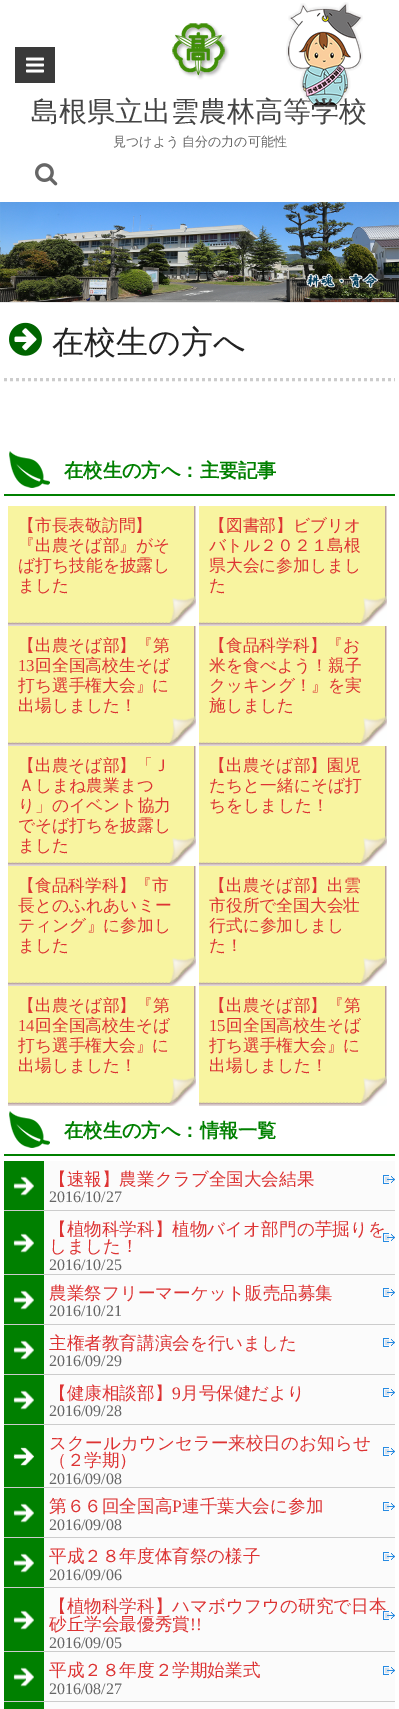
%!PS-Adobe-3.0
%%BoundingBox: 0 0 399 1709
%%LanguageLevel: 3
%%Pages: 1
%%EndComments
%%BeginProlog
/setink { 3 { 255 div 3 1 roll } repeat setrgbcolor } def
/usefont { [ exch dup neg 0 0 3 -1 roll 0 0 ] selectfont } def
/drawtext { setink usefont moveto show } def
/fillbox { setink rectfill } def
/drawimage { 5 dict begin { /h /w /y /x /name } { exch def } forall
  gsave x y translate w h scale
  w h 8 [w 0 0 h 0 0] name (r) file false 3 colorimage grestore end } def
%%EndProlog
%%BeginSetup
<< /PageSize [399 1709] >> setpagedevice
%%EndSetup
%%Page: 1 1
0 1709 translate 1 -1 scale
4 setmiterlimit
0 0 399 1709 255 255 255 fillbox
15 47 40 36 58 58 58 fillbox
(assets/img1.rgb) 26 57 18 16 drawimage
(assets/img2.rgb) 35 163 23 23 drawimage
(assets/img3.rgb) 286 2 77 107 drawimage
(assets/img4.rgb) 172 23 57 57 drawimage
(島根県立出雲農林高等学校) 31 121 /WenQuanYiZenHei-Medium 28 68 68 68 drawtext
/WenQuanYiZenHei-Medium 13 usefont
102 102 102 setink
113 146 moveto -1 0 32 (見つけよう 自分の力の可能性) widthshow
(assets/img5.rgb) 0 202 399 100 drawimage
0 302 399 1 234 234 234 fillbox
204 204 204 setink
3 setlinewidth
[3 3] 0 setdash
4 379.5 moveto 395 379.5 lineto stroke
(assets/img6.rgb) 9 322 33 34 drawimage
(在校生の方へ) 52 353 /WenQuanYiZenHei-Medium 32 34 34 34 drawtext
(assets/img7.rgb) 9 451 41 37 drawimage
4 494 391 2 0 128 0 fillbox
(在校生の方へ：主要記事) 64 477 /WenQuanYiZenHei-Bold 19.25 0 128 0 drawtext
(assets/img8.rgb) 8 506 188 120 drawimage
(【市長表敬訪問】) 18 531 /WenQuanYiZenHei-Medium 16.75 221 51 51 drawtext
(『出農そば部』がそ) 18 551 /WenQuanYiZenHei-Medium 16.75 221 51 51 drawtext
(ば打ち技能を披露し) 18 571 /WenQuanYiZenHei-Medium 16.75 221 51 51 drawtext
(ました) 18 591 /WenQuanYiZenHei-Medium 16.75 221 51 51 drawtext
(assets/img8.rgb) 199 506 188 120 drawimage
(【図書部】ビブリオ) 209 531 /WenQuanYiZenHei-Medium 16.75 221 51 51 drawtext
(バトル２０２１島根) 209 551 /WenQuanYiZenHei-Medium 16.75 221 51 51 drawtext
(県大会に参加しまし) 209 571 /WenQuanYiZenHei-Medium 16.75 221 51 51 drawtext
(た) 209 591 /WenQuanYiZenHei-Medium 16.75 221 51 51 drawtext
(assets/img8.rgb) 8 626 188 120 drawimage
(【出農そば部】『第) 18 651 /WenQuanYiZenHei-Medium 16.75 221 51 51 drawtext
(13) 18 671 /LiberationSerif-Regular 16.75 221 51 51 drawtext
(回全国高校生そば) 35 671 /WenQuanYiZenHei-Medium 16.75 221 51 51 drawtext
(打ち選手権大会』に) 18 691 /WenQuanYiZenHei-Medium 16.75 221 51 51 drawtext
(出場しました！) 18 711 /WenQuanYiZenHei-Medium 16.75 221 51 51 drawtext
(assets/img8.rgb) 199 626 188 120 drawimage
(【食品科学科】『お) 209 651 /WenQuanYiZenHei-Medium 16.75 221 51 51 drawtext
(米を食べよう！親子) 209 671 /WenQuanYiZenHei-Medium 16.75 221 51 51 drawtext
(クッキング！』を実) 209 691 /WenQuanYiZenHei-Medium 16.75 221 51 51 drawtext
(施しました) 209 711 /WenQuanYiZenHei-Medium 16.75 221 51 51 drawtext
(assets/img8.rgb) 8 746 188 120 drawimage
(【出農そば部】「Ｊ) 18 771 /WenQuanYiZenHei-Medium 16.75 221 51 51 drawtext
(Ａしまね農業まつ) 18 791 /WenQuanYiZenHei-Medium 16.75 221 51 51 drawtext
(り」のイベント協力) 18 811 /WenQuanYiZenHei-Medium 16.75 221 51 51 drawtext
(でそば打ちを披露し) 18 831 /WenQuanYiZenHei-Medium 16.75 221 51 51 drawtext
(ました) 18 851 /WenQuanYiZenHei-Medium 16.75 221 51 51 drawtext
(assets/img8.rgb) 199 746 188 120 drawimage
(【出農そば部】園児) 209 771 /WenQuanYiZenHei-Medium 16.75 221 51 51 drawtext
(たちと一緒にそば打) 209 791 /WenQuanYiZenHei-Medium 16.75 221 51 51 drawtext
(ちをしました！) 209 811 /WenQuanYiZenHei-Medium 16.75 221 51 51 drawtext
(assets/img8.rgb) 8 866 188 120 drawimage
(【食品科学科】『市) 18 891 /WenQuanYiZenHei-Medium 16.75 221 51 51 drawtext
(長とのふれあいミー) 18 911 /WenQuanYiZenHei-Medium 16.75 221 51 51 drawtext
(ティング』に参加し) 18 931 /WenQuanYiZenHei-Medium 16.75 221 51 51 drawtext
(ました) 18 951 /WenQuanYiZenHei-Medium 16.75 221 51 51 drawtext
(assets/img8.rgb) 199 866 188 120 drawimage
(【出農そば部】出雲) 209 891 /WenQuanYiZenHei-Medium 16.75 221 51 51 drawtext
(市役所で全国大会壮) 209 911 /WenQuanYiZenHei-Medium 16.75 221 51 51 drawtext
(行式に参加しまし) 209 931 /WenQuanYiZenHei-Medium 16.75 221 51 51 drawtext
(た！) 209 951 /WenQuanYiZenHei-Medium 16.75 221 51 51 drawtext
(assets/img8.rgb) 8 986 188 120 drawimage
(【出農そば部】『第) 18 1011 /WenQuanYiZenHei-Medium 16.75 221 51 51 drawtext
(14) 18 1031 /LiberationSerif-Regular 16.75 221 51 51 drawtext
(回全国高校生そば) 35 1031 /WenQuanYiZenHei-Medium 16.75 221 51 51 drawtext
(打ち選手権大会』に) 18 1051 /WenQuanYiZenHei-Medium 16.75 221 51 51 drawtext
(出場しました！) 18 1071 /WenQuanYiZenHei-Medium 16.75 221 51 51 drawtext
(assets/img8.rgb) 199 986 188 120 drawimage
(【出農そば部】『第) 209 1011 /WenQuanYiZenHei-Medium 16.75 221 51 51 drawtext
(15) 209 1031 /LiberationSerif-Regular 16.75 221 51 51 drawtext
(回全国高校生そば) 226 1031 /WenQuanYiZenHei-Medium 16.75 221 51 51 drawtext
(打ち選手権大会』に) 209 1051 /WenQuanYiZenHei-Medium 16.75 221 51 51 drawtext
(出場しました！) 209 1071 /WenQuanYiZenHei-Medium 16.75 221 51 51 drawtext
(assets/img7.rgb) 9 1111 41 37 drawimage
4 1154 391 2 0 128 0 fillbox
(在校生の方へ：情報一覧) 64 1137 /WenQuanYiZenHei-Bold 19.25 0 128 0 drawtext
44 1161 351 49 251 251 251 fillbox
(assets/img9.rgb) 4 1161 40 49 drawimage
4 1210 391 1 204 204 204 fillbox
(assets/img10.rgb) 383 1175 12 9 drawimage
(【速報】農業クラブ全国大会結果) 49 1185 /WenQuanYiZenHei-Medium 17.6 221 51 51 drawtext
(2016/10/27) 49 1202 /LiberationSerif-Regular 16 102 102 102 drawtext
44 1211 351 63 251 251 251 fillbox
(assets/img11.rgb) 4 1211 40 63 drawimage
4 1274 391 1 204 204 204 fillbox
(assets/img10.rgb) 383 1233 12 9 drawimage
(【植物科学科】植物バイオ部門の芋掘りを) 49 1235 /WenQuanYiZenHei-Medium 17.6 221 51 51 drawtext
(しました！) 49 1252 /WenQuanYiZenHei-Medium 17.6 221 51 51 drawtext
(2016/10/25) 49 1270 /LiberationSerif-Regular 16 102 102 102 drawtext
44 1275 351 49 251 251 251 fillbox
(assets/img9.rgb) 4 1275 40 49 drawimage
4 1324 391 1 204 204 204 fillbox
(assets/img10.rgb) 383 1288 12 9 drawimage
(農業祭フリーマーケット販売品募集) 49 1299 /WenQuanYiZenHei-Medium 17.6 221 51 51 drawtext
(2016/10/21) 49 1316 /LiberationSerif-Regular 16 102 102 102 drawtext
44 1325 351 49 251 251 251 fillbox
(assets/img9.rgb) 4 1325 40 49 drawimage
4 1374 391 1 204 204 204 fillbox
(assets/img10.rgb) 383 1338 12 9 drawimage
(主権者教育講演会を行いました) 49 1349 /WenQuanYiZenHei-Medium 17.6 221 51 51 drawtext
(2016/09/29) 49 1366 /LiberationSerif-Regular 16 102 102 102 drawtext
44 1375 351 49 251 251 251 fillbox
(assets/img9.rgb) 4 1375 40 49 drawimage
4 1424 391 1 204 204 204 fillbox
(assets/img10.rgb) 383 1388 12 9 drawimage
(【健康相談部】) 49 1399 /WenQuanYiZenHei-Medium 17.6 221 51 51 drawtext
(9) 172 1399 /LiberationSerif-Regular 17.6 221 51 51 drawtext
(月号保健だより) 181 1399 /WenQuanYiZenHei-Medium 17.6 221 51 51 drawtext
(2016/09/28) 49 1416 /LiberationSerif-Regular 16 102 102 102 drawtext
44 1425 351 62 251 251 251 fillbox
(assets/img12.rgb) 4 1425 40 62 drawimage
4 1487 391 1 204 204 204 fillbox
(assets/img10.rgb) 383 1447 12 9 drawimage
(スクールカウンセラー来校日のお知らせ) 49 1449 /WenQuanYiZenHei-Medium 17.6 221 51 51 drawtext
(（２学期）) 49 1466 /WenQuanYiZenHei-Medium 17.6 221 51 51 drawtext
(2016/09/08) 49 1484 /LiberationSerif-Regular 16 102 102 102 drawtext
44 1488 351 49 251 251 251 fillbox
(assets/img9.rgb) 4 1488 40 49 drawimage
4 1537 391 1 204 204 204 fillbox
(assets/img10.rgb) 383 1502 12 9 drawimage
(第６６回全国高) 49 1512 /WenQuanYiZenHei-Medium 17.6 221 51 51 drawtext
(P) 172 1512 /LiberationSerif-Regular 17.6 221 51 51 drawtext
(連千葉大会に参加) 182 1512 /WenQuanYiZenHei-Medium 17.6 221 51 51 drawtext
(2016/09/08) 49 1530 /LiberationSerif-Regular 16 102 102 102 drawtext
44 1538 351 49 251 251 251 fillbox
(assets/img9.rgb) 4 1538 40 49 drawimage
4 1587 391 1 204 204 204 fillbox
(assets/img10.rgb) 383 1552 12 9 drawimage
(平成２８年度体育祭の様子) 49 1562 /WenQuanYiZenHei-Medium 17.6 221 51 51 drawtext
(2016/09/06) 49 1580 /LiberationSerif-Regular 16 102 102 102 drawtext
44 1588 351 63 251 251 251 fillbox
(assets/img11.rgb) 4 1588 40 63 drawimage
4 1651 391 1 204 204 204 fillbox
(assets/img10.rgb) 383 1611 12 9 drawimage
(【植物科学科】ハマボウフウの研究で日本) 49 1612 /WenQuanYiZenHei-Medium 17.6 221 51 51 drawtext
(砂丘学会最優秀賞) 49 1630 /WenQuanYiZenHei-Medium 17.6 221 51 51 drawtext
(!!) 190 1630 /LiberationSerif-Regular 17.6 221 51 51 drawtext
(2016/09/05) 49 1648 /LiberationSerif-Regular 16 102 102 102 drawtext
44 1652 351 49 251 251 251 fillbox
(assets/img9.rgb) 4 1652 40 49 drawimage
4 1701 391 1 204 204 204 fillbox
(assets/img10.rgb) 383 1666 12 9 drawimage
(平成２８年度２学期始業式) 49 1676 /WenQuanYiZenHei-Medium 17.6 221 51 51 drawtext
(2016/08/27) 49 1694 /LiberationSerif-Regular 16 102 102 102 drawtext
44 1702 351 7 251 251 251 fillbox
4 1702 40 7 0 128 0 fillbox
showpage
%%EOF
